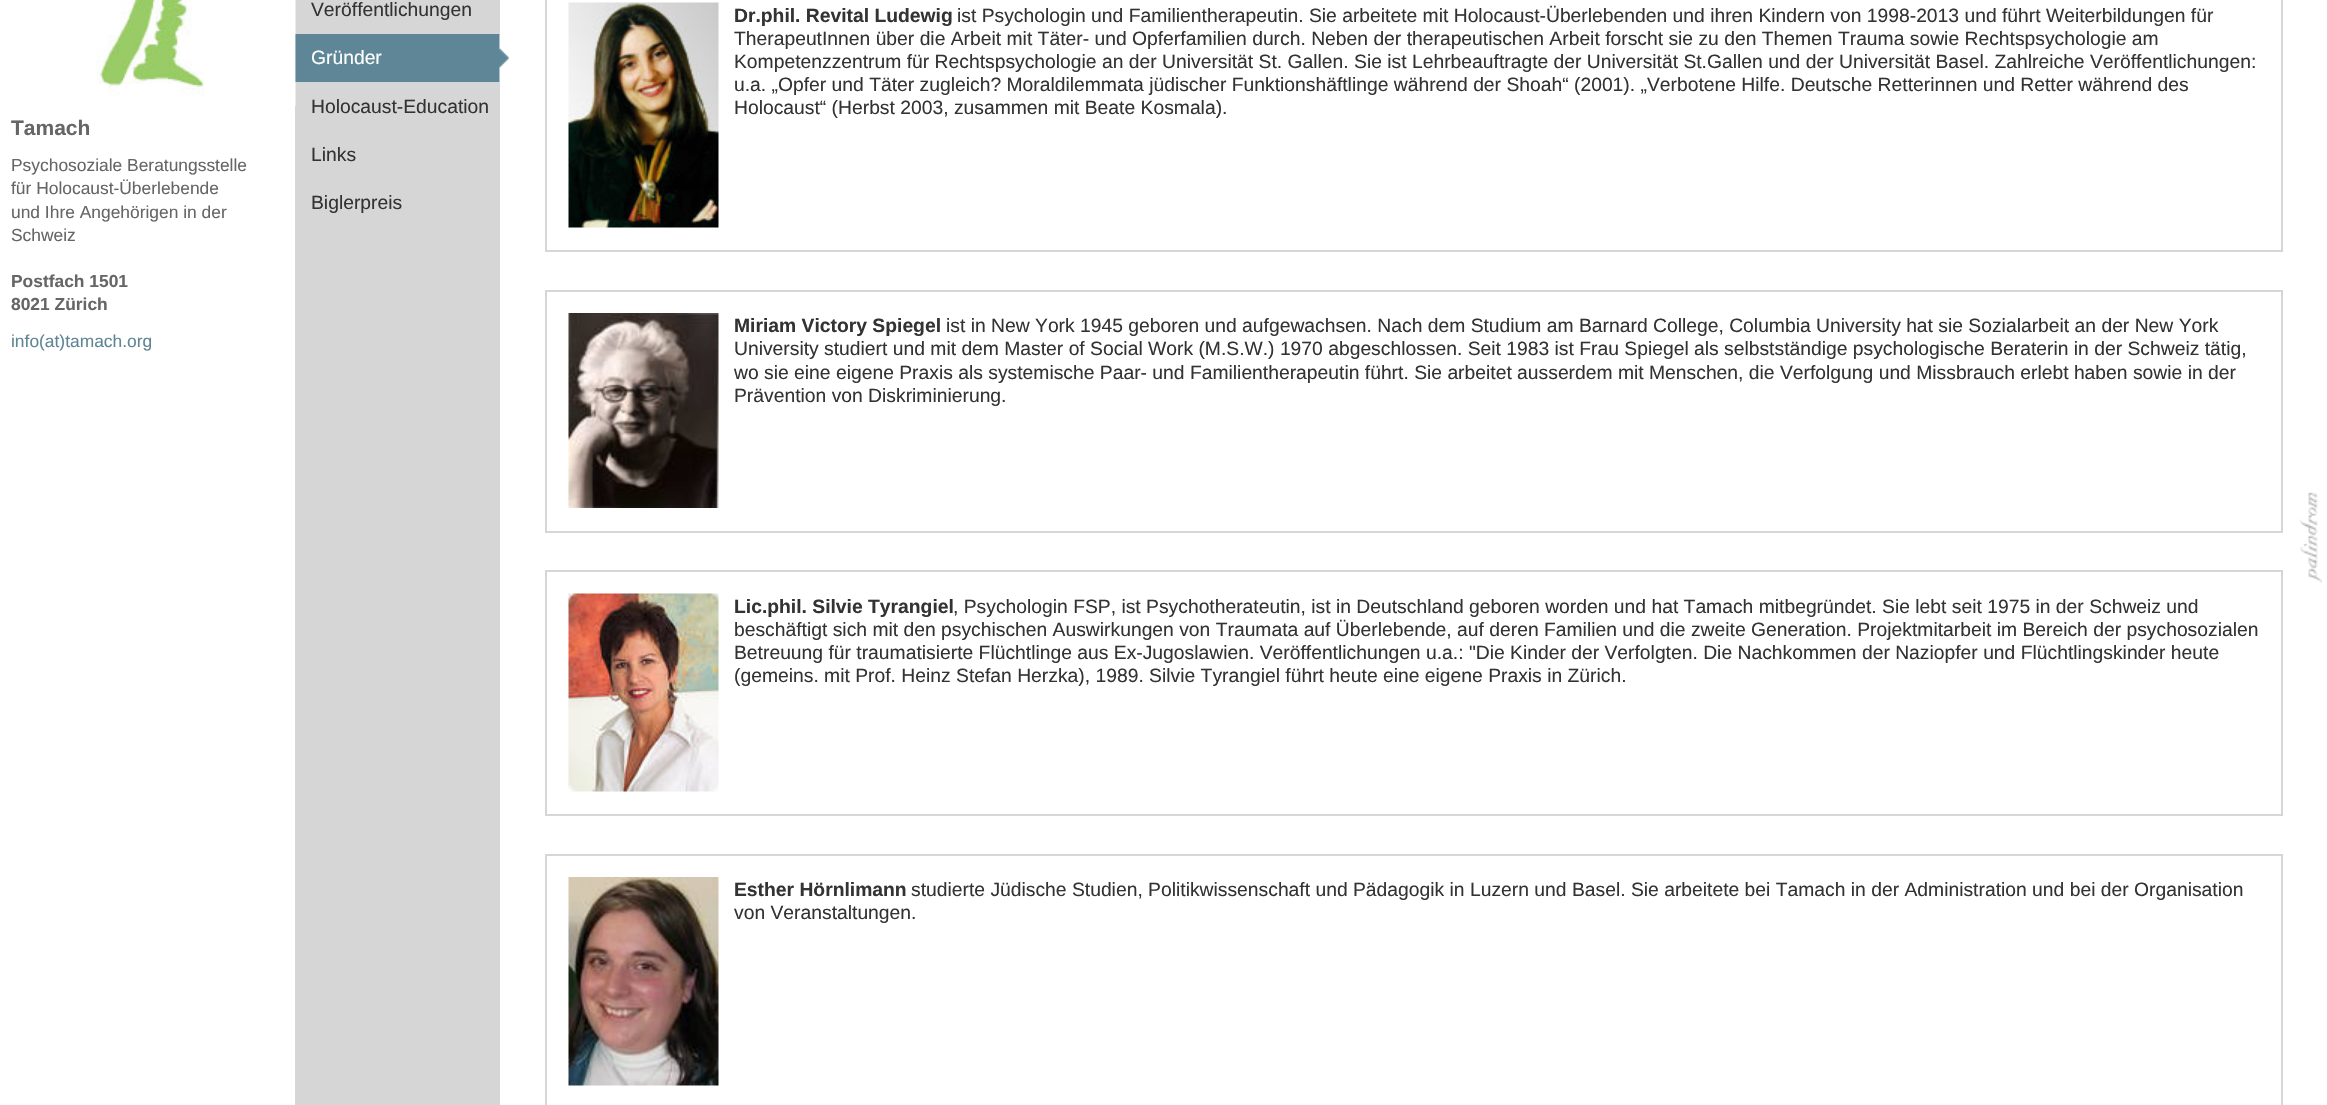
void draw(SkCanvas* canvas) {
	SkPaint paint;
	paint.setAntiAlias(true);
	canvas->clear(0xffffffff);
	paint.setColor(0xffd6d6d6);
	canvas->drawRect(SkRect::MakeXYWH(295, 0, 205, 1105), paint);
	canvas->drawImageRect(SkImages::DeferredFromEncodedData(SkData::MakeFromFileName("img1.png")), SkRect::MakeXYWH(96, 0, 200, 106), SkSamplingOptions());
	SkFont f1(fontMgr->matchFamilyStyle("Liberation Sans", SkFontStyle::Bold()), 21);
	f1.setSubpixel(true);
	paint.setColor(0xff666666);
	canvas->drawString("Tamach", 11, 135, f1, paint);
	SkFont f2(fontMgr->matchFamilyStyle("Liberation Sans", SkFontStyle::Normal()), 17.4);
	f2.setSubpixel(true);
	canvas->drawString("Psychosoziale Beratungsstelle", 11, 171, f2, paint);
	canvas->drawString("für Holocaust-Überlebende", 11, 194, f2, paint);
	canvas->drawString("und Ihre Angehörigen in der", 11, 218, f2, paint);
	canvas->drawString("Schweiz", 11, 241, f2, paint);
	SkFont f3(fontMgr->matchFamilyStyle("Liberation Sans", SkFontStyle::Bold()), 17.4);
	f3.setSubpixel(true);
	canvas->drawString("Postfach 1501", 11, 287, f3, paint);
	canvas->drawString("8021 Zürich", 11, 310, f3, paint);
	paint.setColor(0xff5e8696);
	canvas->drawString("info(at)tamach.org", 11, 347, f2, paint);
	SkFont f4(fontMgr->matchFamilyStyle("Liberation Sans", SkFontStyle::Normal()), 19.3);
	f4.setSubpixel(true);
	paint.setColor(0xff333333);
	canvas->drawString("Veröffentlichungen", 311, 16, f4, paint);
	canvas->drawImageRect(SkImages::DeferredFromEncodedData(SkData::MakeFromFileName("img2.png")), SkRect::MakeXYWH(295, 34, 214, 48), SkSamplingOptions());
	paint.setColor(0xffffffff);
	canvas->drawString("Gründer", 311, 64, f4, paint);
	paint.setColor(0xff333333);
	canvas->drawString("Holocaust-Education", 311, 113, f4, paint);
	canvas->drawString("Links", 311, 161, f4, paint);
	canvas->drawString("Biglerpreis", 311, 209, f4, paint);
	paint.setStroke(true);
	paint.setStrokeWidth(2);
	paint.setColor(0xffd6d6d6);
	canvas->drawRect(SkRect::MakeXYWH(546, -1, 1736, 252), paint);
	canvas->drawImageRect(SkImages::DeferredFromEncodedData(SkData::MakeFromFileName("img3.png")), SkRect::MakeXYWH(568, 2, 151, 226), SkSamplingOptions());
	SkFont f5(fontMgr->matchFamilyStyle("Liberation Sans", SkFontStyle::Bold()), 19.3);
	f5.setSubpixel(true);
	paint.setStroke(false);
	paint.setColor(0xff333333);
	canvas->drawString("Dr.phil. Revital Ludewig", 734, 22, f5, paint);
	canvas->drawString("ist Psychologin und Familientherapeutin. Sie arbeitete mit Holocaust-Überlebenden und ihren Kindern von 1998-2013 und führt Weiterbildungen für", 957, 22, f4, paint);
	canvas->drawString("TherapeutInnen über die Arbeit mit Täter- und Opferfamilien durch. Neben der therapeutischen Arbeit forscht sie zu den Themen Trauma sowie Rechtspsychologie am", 734, 45, f4, paint);
	canvas->drawString("Kompetenzzentrum für Rechtspsychologie an der Universität St. Gallen. Sie ist Lehrbeauftragte der Universität St.Gallen und der Universität Basel. Zahlreiche Veröffentlichungen:", 734, 68, f4, paint);
	canvas->drawString("u.a. „Opfer und Täter zugleich? Moraldilemmata jüdischer Funktionshäftlinge während der Shoah“ (2001). „Verbotene Hilfe. Deutsche Retterinnen und Retter während des", 734, 91, f4, paint);
	canvas->drawString("Holocaust“ (Herbst 2003, zusammen mit Beate Kosmala).", 734, 114, f4, paint);
	paint.setStroke(true);
	paint.setColor(0xffd6d6d6);
	canvas->drawRect(SkRect::MakeXYWH(546, 291, 1736, 241), paint);
	canvas->drawImageRect(SkImages::DeferredFromEncodedData(SkData::MakeFromFileName("img4.png")), SkRect::MakeXYWH(568, 313, 151, 195), SkSamplingOptions());
	paint.setStroke(false);
	paint.setColor(0xff333333);
	canvas->drawString("Miriam Victory Spiegel", 734, 332, f5, paint);
	canvas->drawString("ist in New York 1945 geboren und aufgewachsen. Nach dem Studium am Barnard College, Columbia University hat sie Sozialarbeit an der New York", 946, 332, f4, paint);
	canvas->drawString("University studiert und mit dem Master of Social Work (M.S.W.) 1970 abgeschlossen. Seit 1983 ist Frau Spiegel als selbstständige psychologische Beraterin in der Schweiz tätig,", 734, 355, f4, paint);
	canvas->drawString("wo sie eine eigene Praxis als systemische Paar- und Familientherapeutin führt. Sie arbeitet ausserdem mit Menschen, die Verfolgung und Missbrauch erlebt haben sowie in der", 734, 379, f4, paint);
	canvas->drawString("Prävention von Diskriminierung.", 734, 402, f4, paint);
	paint.setStroke(true);
	paint.setColor(0xffd6d6d6);
	canvas->drawRect(SkRect::MakeXYWH(546, 571, 1736, 244), paint);
	canvas->drawImageRect(SkImages::DeferredFromEncodedData(SkData::MakeFromFileName("img5.png")), SkRect::MakeXYWH(568, 593, 151, 199), SkSamplingOptions());
	paint.setStroke(false);
	paint.setColor(0xff333333);
	canvas->drawString("Lic.phil. Silvie Tyrangiel", 734, 613, f5, paint);
	canvas->drawString(", Psychologin FSP, ist Psychotherateutin, ist in Deutschland geboren worden und hat Tamach mitbegründet. Sie lebt seit 1975 in der Schweiz und", 953, 613, f4, paint);
	canvas->drawString("beschäftigt sich mit den psychischen Auswirkungen von Traumata auf Überlebende, auf deren Familien und die zweite Generation. Projektmitarbeit im Bereich der psychosozialen", 734, 636, f4, paint);
	canvas->drawString("Betreuung für traumatisierte Flüchtlinge aus Ex-Jugoslawien. Veröffentlichungen u.a.: \"Die Kinder der Verfolgten. Die Nachkommen der Naziopfer und Flüchtlingskinder heute", 734, 659, f4, paint);
	canvas->drawString("(gemeins. mit Prof. Heinz Stefan Herzka), 1989. Silvie Tyrangiel führt heute eine eigene Praxis in Zürich.", 734, 682, f4, paint);
	paint.setStroke(true);
	paint.setColor(0xffd6d6d6);
	canvas->drawRect(SkRect::MakeXYWH(546, 855, 1736, 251), paint);
	canvas->drawImageRect(SkImages::DeferredFromEncodedData(SkData::MakeFromFileName("img6.png")), SkRect::MakeXYWH(568, 877, 151, 209), SkSamplingOptions());
	paint.setStroke(false);
	paint.setColor(0xff333333);
	canvas->drawString("Esther Hörnlimann", 734, 896, f5, paint);
	canvas->drawString("studierte Jüdische Studien, Politikwissenschaft und Pädagogik in Luzern und Basel. Sie arbeitete bei Tamach in der Administration und bei der Organisation", 911, 896, f4, paint);
	canvas->drawString("von Veranstaltungen.", 734, 919, f4, paint);
	canvas->drawImageRect(SkImages::DeferredFromEncodedData(SkData::MakeFromFileName("img7.png")), SkRect::MakeXYWH(2299, 492, 24, 91), SkSamplingOptions());
}
